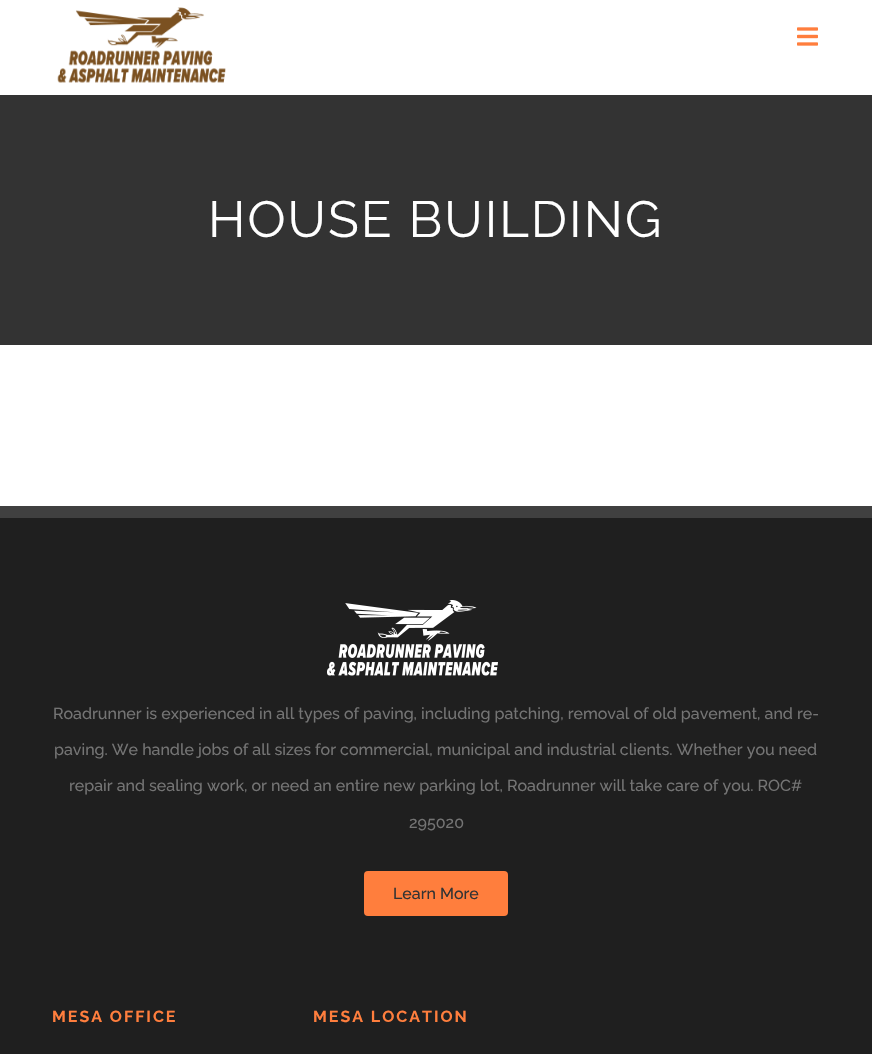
void draw(SkCanvas* canvas) {
	SkPaint paint;
	paint.setAntiAlias(true);
	auto spacedText = [&](const char* s, float x, float y, const SkFont& font, const SkPaint& ink, float letter, float word) {
		std::vector<SkGlyphID> glyphs(font.countText(s, strlen(s), SkTextEncoding::kUTF8));
		std::vector<float> xs(glyphs.size());
		font.textToGlyphs(s, strlen(s), SkTextEncoding::kUTF8, glyphs);
		font.getXPos(glyphs, xs, x);
		float extra = 0;
		for (size_t i = 0; i < glyphs.size(); i++) {
			xs[i] += extra;
			extra += letter + word * (glyphs[i] == font.unicharToGlyph(' '));
		}
		canvas->drawTextBlob(SkTextBlob::MakeFromPosHGlyphs(glyphs, xs, y, font), 0, 0, ink);
	};
	canvas->clear(0xffffffff);
	canvas->drawImageRect(SkImages::DeferredFromEncodedData(SkData::MakeFromFileName("img1.png")), SkRect::MakeXYWH(57, 7, 169, 76), SkSamplingOptions());
	canvas->drawImageRect(SkImages::DeferredFromEncodedData(SkData::MakeFromFileName("img2.png")), SkRect::MakeXYWH(797, 27, 21, 19), SkSamplingOptions());
	paint.setColor(0xff333333);
	canvas->drawRect(SkRect::MakeXYWH(0, 95, 872, 250), paint);
	SkFont f1(fontMgr->matchFamilyStyle("Raleway", SkFontStyle::Normal()), 50.75);
	f1.setSubpixel(true);
	paint.setColor(0xffffffff);
	spacedText("HOUSE BUILDING", 208, 237, f1, paint, 2, 0);
	paint.setColor(0xff1f1f1f);
	canvas->drawRect(SkRect::MakeXYWH(0, 518, 872, 536), paint);
	paint.setColor(0xff404040);
	canvas->drawRect(SkRect::MakeXYWH(0, 506, 872, 12), paint);
	canvas->drawImageRect(SkImages::DeferredFromEncodedData(SkData::MakeFromFileName("img3.png")), SkRect::MakeXYWH(327, 600, 171, 76), SkSamplingOptions());
	SkFont f2(fontMgr->matchFamilyStyle("Raleway", SkFontStyle(500, SkFontStyle::kNormal_Width, SkFontStyle::kUpright_Slant)), 16);
	f2.setSubpixel(true);
	paint.setColor(0xff747474);
	canvas->drawString("Roadrunner is experienced in all types of paving, including patching, removal of old pavement, and re-", 53, 719, f2, paint);
	canvas->drawString("paving. We handle jobs of all sizes for commercial, municipal and industrial clients. Whether you need", 54, 755, f2, paint);
	canvas->drawString("repair and sealing work, or need an entire new parking lot, Roadrunner will take care of you. ROC#", 69, 791, f2, paint);
	canvas->drawString("295020", 409, 828, f2, paint);
	paint.setColor(0xffff7e3d);
	canvas->drawRoundRect(SkRect::MakeXYWH(364, 871, 144, 45), 4, 4, paint);
	paint.setColor(0xff333333);
	canvas->drawString("Learn More", 393, 899, f2, paint);
	SkFont f3(fontMgr->matchFamilyStyle("Raleway", SkFontStyle::Bold()), 16);
	f3.setSubpixel(true);
	paint.setColor(0xffff7e3d);
	spacedText("MESA OFFICE", 52, 1022, f3, paint, 2, 0);
	spacedText("MESA LOCATION", 313, 1022, f3, paint, 2, 0);
}
